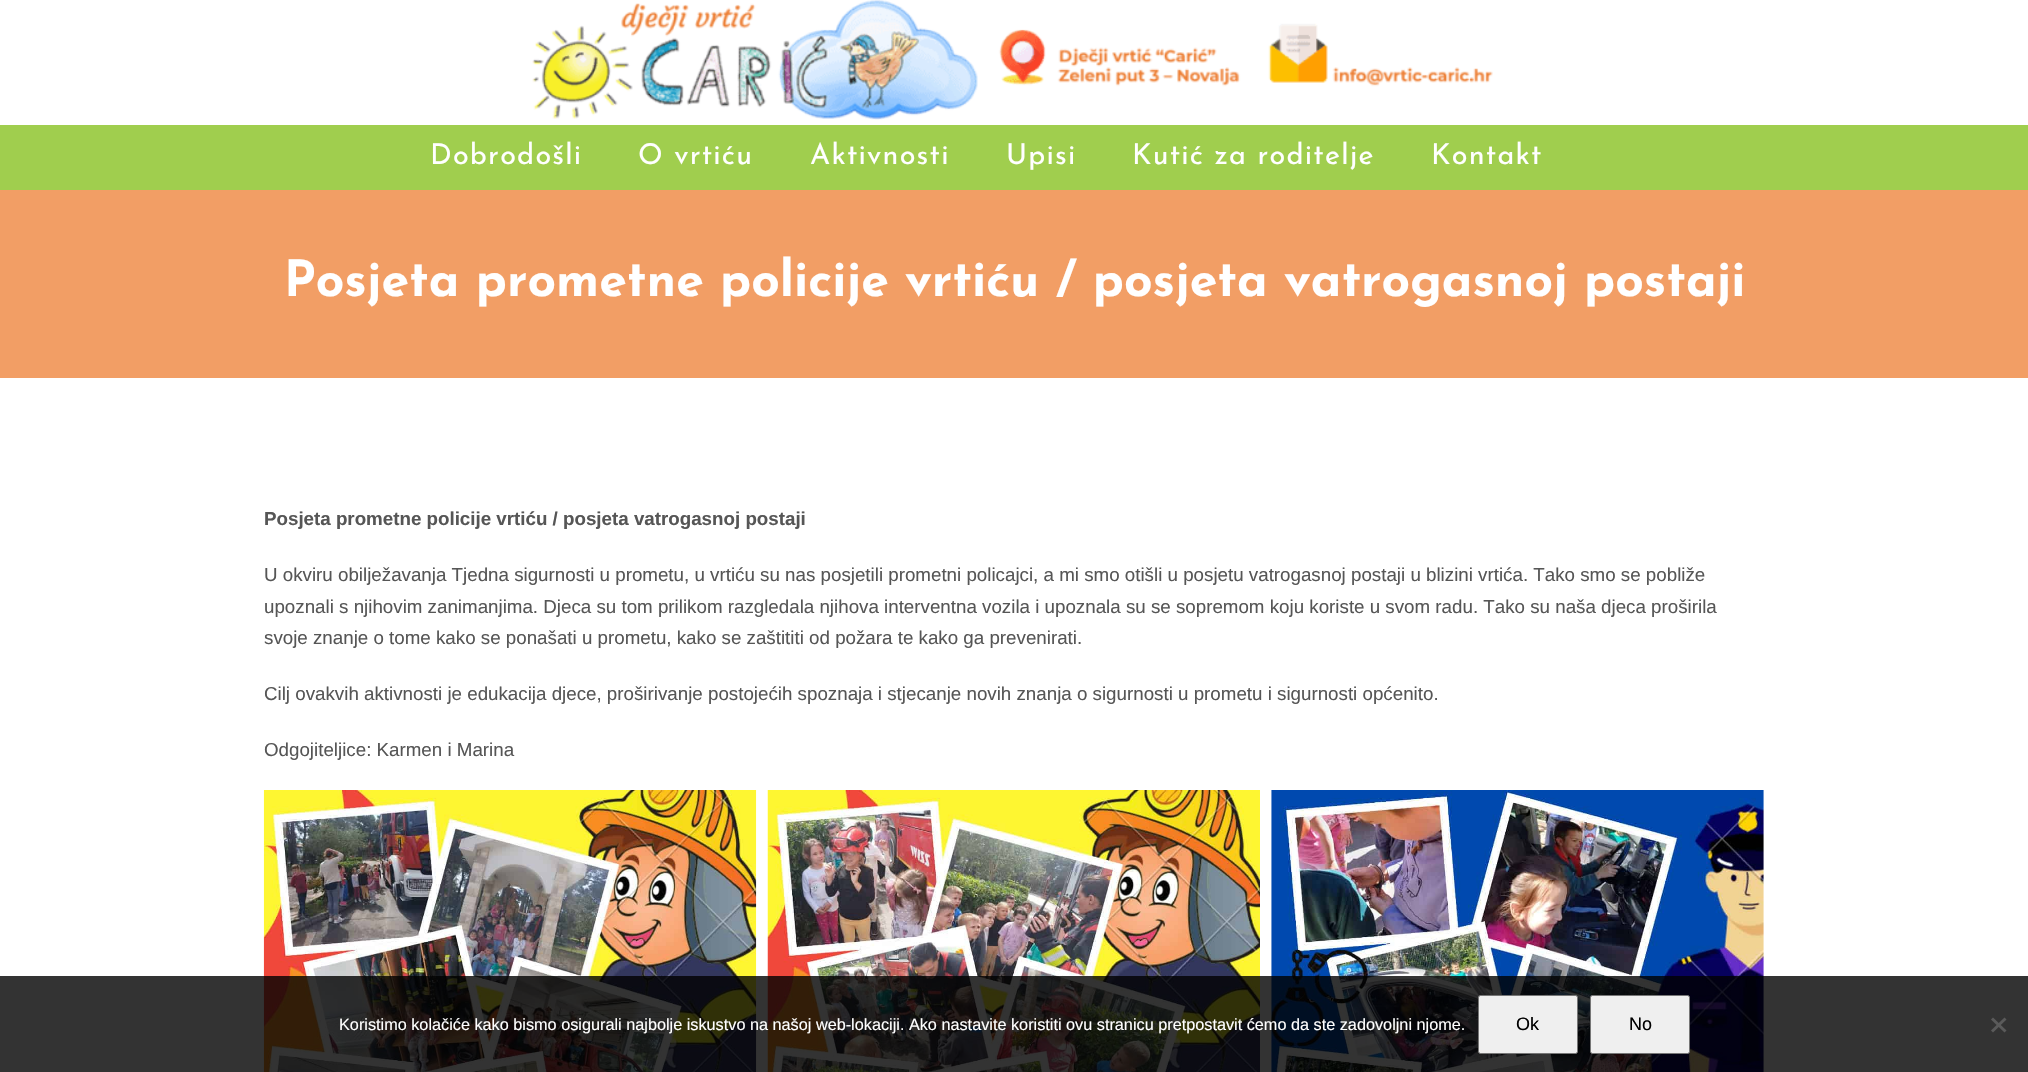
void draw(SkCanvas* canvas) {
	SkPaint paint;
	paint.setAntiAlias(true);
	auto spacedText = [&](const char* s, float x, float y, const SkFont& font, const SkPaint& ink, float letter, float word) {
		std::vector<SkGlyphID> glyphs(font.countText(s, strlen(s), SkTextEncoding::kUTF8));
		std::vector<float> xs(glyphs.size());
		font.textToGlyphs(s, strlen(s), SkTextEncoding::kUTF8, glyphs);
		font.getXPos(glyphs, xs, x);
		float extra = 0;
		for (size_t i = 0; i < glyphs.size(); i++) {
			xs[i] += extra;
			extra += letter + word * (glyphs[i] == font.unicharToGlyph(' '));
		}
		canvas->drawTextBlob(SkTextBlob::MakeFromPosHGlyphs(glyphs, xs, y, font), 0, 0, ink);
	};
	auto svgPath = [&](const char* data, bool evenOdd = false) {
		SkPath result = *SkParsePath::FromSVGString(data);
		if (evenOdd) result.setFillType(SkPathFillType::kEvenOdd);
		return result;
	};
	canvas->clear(0xffffffff);
	canvas->drawImageRect(SkImages::DeferredFromEncodedData(SkData::MakeFromFileName("img1.png")), SkRect::MakeXYWH(532, 0, 961, 120), SkSamplingOptions());
	paint.setColor(0xffa0ce4e);
	canvas->drawRect(SkRect::MakeXYWH(0, 125, 2028, 65), paint);
	SkFont f1(fontMgr->matchFamilyStyle("Josefin Sans", SkFontStyle::Normal()), 28.75);
	f1.setSubpixel(true);
	paint.setColor(0xffffffff);
	spacedText("Dobrodošli", 430, 164, f1, paint, 1.25, 0);
	spacedText("O vrtiću", 638, 164, f1, paint, 1.25, 0);
	spacedText("Aktivnosti", 810, 164, f1, paint, 1.25, 0);
	spacedText("Upisi", 1006, 164, f1, paint, 1.25, 0);
	spacedText("Kutić za roditelje", 1132, 164, f1, paint, 1.25, 0);
	spacedText("Kontakt", 1431, 164, f1, paint, 1.25, 0);
	paint.setColor(0xfff29e65);
	canvas->drawRect(SkRect::MakeXYWH(0, 190, 2028, 188), paint);
	SkFont f2(fontMgr->matchFamilyStyle("Josefin Sans", SkFontStyle::Bold()), 50);
	f2.setSubpixel(true);
	paint.setColor(0xffffffff);
	canvas->drawString("Posjeta prometne policije vrtiću / posjeta vatrogasnoj postaji", 284, 296, f2, paint);
	SkFont f3(fontMgr->matchFamilyStyle("Liberation Sans", SkFontStyle::Bold()), 18.75);
	f3.setSubpixel(true);
	paint.setColor(0xff565656);
	canvas->drawString("Posjeta prometne policije vrtiću / posjeta vatrogasnoj postaji", 264, 525, f3, paint);
	SkFont f4(fontMgr->matchFamilyStyle("Liberation Sans", SkFontStyle::Normal()), 18.75);
	f4.setSubpixel(true);
	canvas->drawString("U okviru obilježavanja Tjedna sigurnosti u prometu, u vrtiću su nas posjetili prometni policajci, a mi smo otišli u posjetu vatrogasnoj postaji u blizini vrtića. Tako smo se pobliže", 264, 581, f4, paint);
	canvas->drawString("upoznali s njihovim zanimanjima. Djeca su tom prilikom razgledala njihova interventna vozila i upoznala su se sopremom koju koriste u svom radu. Tako su naša djeca proširila", 264, 613, f4, paint);
	canvas->drawString("svoje znanje o tome kako se ponašati u prometu, kako se zaštititi od požara te kako ga prevenirati.", 264, 644, f4, paint);
	canvas->drawString("Cilj ovakvih aktivnosti je edukacija djece, proširivanje postojećih spoznaja i stjecanje novih znanja o sigurnosti u prometu i sigurnosti općenito.", 264, 700, f4, paint);
	canvas->drawString("Odgojiteljice: Karmen i Marina", 264, 756, f4, paint);
	canvas->drawImageRect(SkImages::DeferredFromEncodedData(SkData::MakeFromFileName("img2.png")), SkRect::MakeXYWH(263, 790, 494, 282), SkSamplingOptions());
	canvas->drawImageRect(SkImages::DeferredFromEncodedData(SkData::MakeFromFileName("img3.png")), SkRect::MakeXYWH(767, 790, 493, 282), SkSamplingOptions());
	canvas->drawImageRect(SkImages::DeferredFromEncodedData(SkData::MakeFromFileName("img4.png")), SkRect::MakeXYWH(1271, 790, 493, 282), SkSamplingOptions());
	paint.setColor(0xcc000000);
	canvas->drawRect(SkRect::MakeXYWH(0, 976, 2028, 96), paint);
	SkFont f5(fontMgr->matchFamilyStyle("Liberation Sans", SkFontStyle::Normal()), 16.25);
	f5.setSubpixel(true);
	paint.setColor(0xffffffff);
	canvas->drawString("Koristimo kolačiće kako bismo osigurali najbolje iskustvo na našoj web-lokaciji. Ako nastavite koristiti ovu stranicu pretpostavit ćemo da ste zadovoljni njome.", 339, 1030, f5, paint);
	paint.setColor(0xffefefef);
	canvas->drawRoundRect(SkRect::MakeXYWH(1478.5, 995.5, 99, 58), 2, 2, paint);
	paint.setStroke(true);
	paint.setStrokeWidth(1);
	paint.setColor(0xff767676);
	canvas->drawRoundRect(SkRect::MakeXYWH(1478.5, 995.5, 99, 58), 2, 2, paint);
	SkFont f6(fontMgr->matchFamilyStyle("Liberation Sans", SkFontStyle::Normal()), 18);
	f6.setSubpixel(true);
	paint.setStroke(false);
	paint.setColor(0xff000000);
	canvas->drawString("Ok", 1516, 1030, f6, paint);
	paint.setColor(0xffefefef);
	canvas->drawRoundRect(SkRect::MakeXYWH(1590.5, 995.5, 99, 58), 2, 2, paint);
	paint.setStroke(true);
	paint.setColor(0xff767676);
	canvas->drawRoundRect(SkRect::MakeXYWH(1590.5, 995.5, 99, 58), 2, 2, paint);
	paint.setStroke(false);
	paint.setColor(0xff000000);
	canvas->drawString("No", 1629, 1030, f6, paint);
	paint.setColor(0xff5a5a5a);
	canvas->drawPath(svgPath("M2004.5 1017.5L2006.5 1019.5L1993 1032.5L1991 1030.5Z"), paint);
	canvas->drawPath(svgPath("M1991 1019.5L1993 1017.5L2006.5 1030.5L2004.5 1032.5Z"), paint);
}
